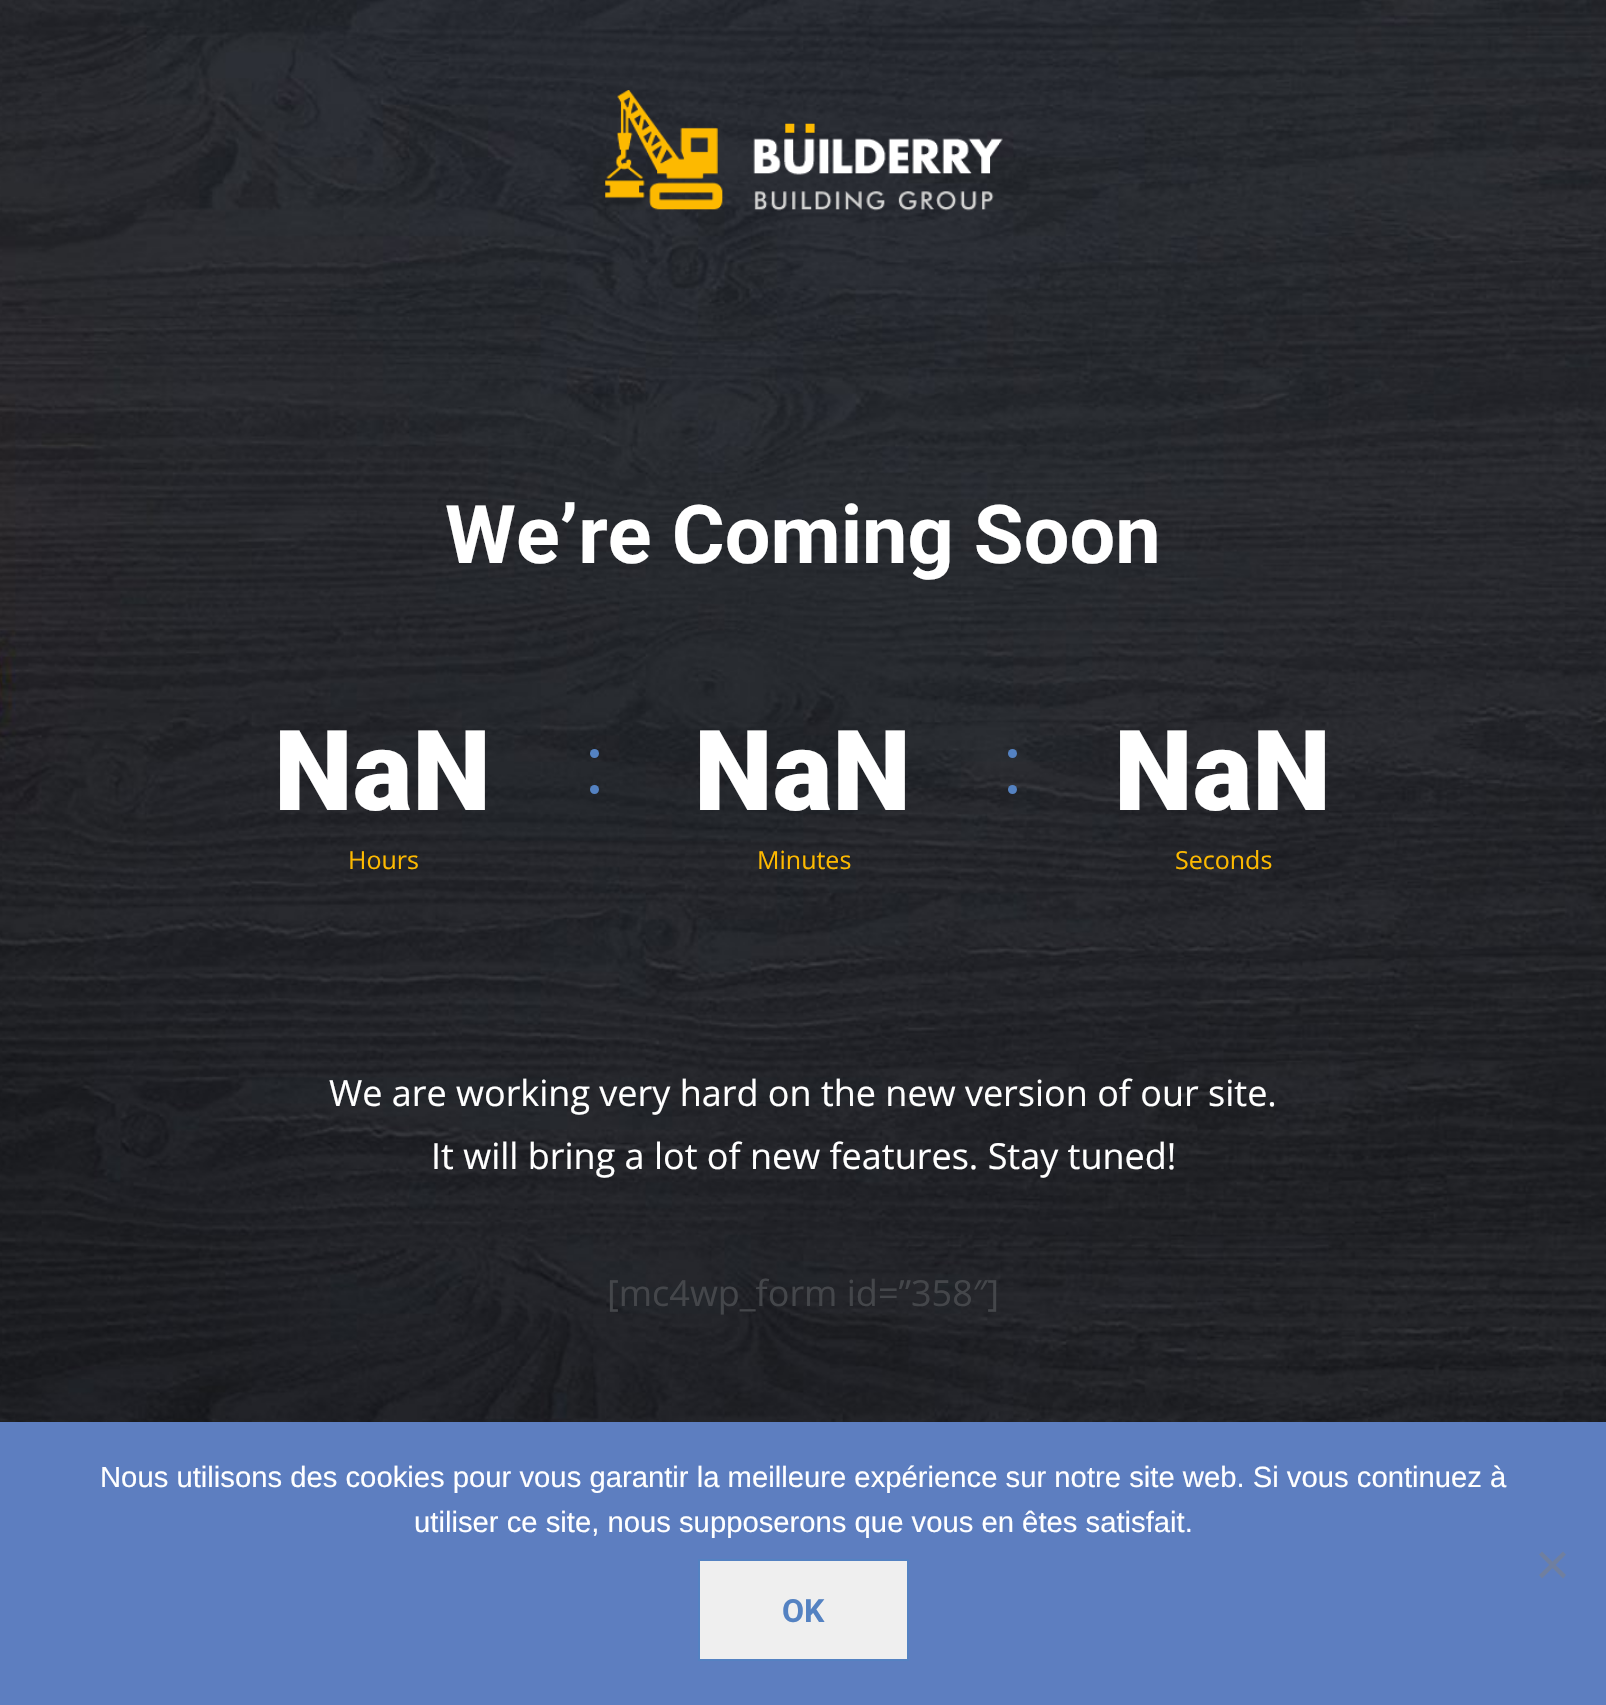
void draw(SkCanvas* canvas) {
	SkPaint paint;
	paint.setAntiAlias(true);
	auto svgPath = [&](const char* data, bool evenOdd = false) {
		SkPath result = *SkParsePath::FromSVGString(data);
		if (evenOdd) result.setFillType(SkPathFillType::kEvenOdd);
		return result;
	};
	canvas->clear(0xffffffff);
	canvas->drawImageRect(SkImages::DeferredFromEncodedData(SkData::MakeFromFileName("img1.png")), SkRect::MakeXYWH(0, 0, 1606, 1422), SkSamplingOptions());
	canvas->drawImageRect(SkImages::DeferredFromEncodedData(SkData::MakeFromFileName("img2.png")), SkRect::MakeXYWH(605, 90, 398, 121), SkSamplingOptions());
	SkFont f1(fontMgr->matchFamilyStyle("Roboto", SkFontStyle::Bold()), 81);
	f1.setSubpixel(true);
	paint.setColor(0xffffffff);
	canvas->drawString("We’re Coming Soon", 445, 563, f1, paint);
	SkFont f2(fontMgr->matchFamilyStyle("Roboto", SkFontStyle(900, SkFontStyle::kNormal_Width, SkFontStyle::kUpright_Slant)), 112);
	f2.setSubpixel(true);
	canvas->drawString("NaN", 274, 810, f2, paint);
	paint.setColor(0xff5482c2);
	canvas->drawCircle(594.5, 753.5, 4.5, paint);
	canvas->drawCircle(594.5, 789.5, 4.5, paint);
	SkFont f3(fontMgr->matchFamilyStyle("Open Sans", SkFontStyle::Normal()), 25);
	f3.setSubpixel(true);
	paint.setColor(0xfffdb900);
	canvas->drawString("Hours", 348, 869, f3, paint);
	paint.setColor(0xffffffff);
	canvas->drawString("NaN", 694, 810, f2, paint);
	paint.setColor(0xff5482c2);
	canvas->drawCircle(1012.5, 753.5, 4.5, paint);
	canvas->drawCircle(1012.5, 789.5, 4.5, paint);
	paint.setColor(0xfffdb900);
	canvas->drawString("Minutes", 757, 869, f3, paint);
	paint.setColor(0xffffffff);
	canvas->drawString("NaN", 1114, 810, f2, paint);
	paint.setColor(0xfffdb900);
	canvas->drawString("Seconds", 1175, 869, f3, paint);
	SkFont f4(fontMgr->matchFamilyStyle("Open Sans", SkFontStyle::Normal()), 36);
	f4.setSubpixel(true);
	paint.setColor(0xffffffff);
	canvas->drawString("We are working very hard on the new version of our site.", 329, 1106, f4, paint);
	canvas->drawString("It will bring a lot of new features. Stay tuned!", 431, 1169, f4, paint);
	paint.setColor(0xff44464a);
	canvas->drawString("[mc4wp_form id=”358″]", 607, 1306, f4, paint);
	paint.setColor(0xff5d7ec0);
	canvas->drawRect(SkRect::MakeXYWH(0, 1422, 1606, 283), paint);
	SkFont f5(fontMgr->matchFamilyStyle("Liberation Sans", SkFontStyle::Normal()), 29.25);
	f5.setSubpixel(true);
	paint.setColor(0xffffffff);
	canvas->drawString("Nous utilisons des cookies pour vous garantir la meilleure expérience sur notre site web. Si vous continuez à", 100, 1487, f5, paint);
	canvas->drawString("utiliser ce site, nous supposerons que vous en êtes satisfait.", 414, 1532, f5, paint);
	paint.setColor(0xff6f7fa0);
	canvas->drawPath(svgPath("M1563 1551.5L1566 1554.5L1542 1578.5L1539 1575Z"), paint);
	canvas->drawPath(svgPath("M1539 1554.5L1542 1551.5L1566 1575L1563 1578.5Z"), paint);
	paint.setColor(0xffefefef);
	canvas->drawRect(SkRect::MakeXYWH(699, 1560, 209, 100), paint);
	paint.setStroke(true);
	paint.setStrokeWidth(2);
	paint.setColor(0xff5482c2);
	canvas->drawRect(SkRect::MakeXYWH(699, 1560, 209, 100), paint);
	SkFont f6(fontMgr->matchFamilyStyle("Roboto", SkFontStyle::Bold()), 32);
	f6.setSubpixel(true);
	paint.setStroke(false);
	canvas->drawString("OK", 782, 1622, f6, paint);
}
